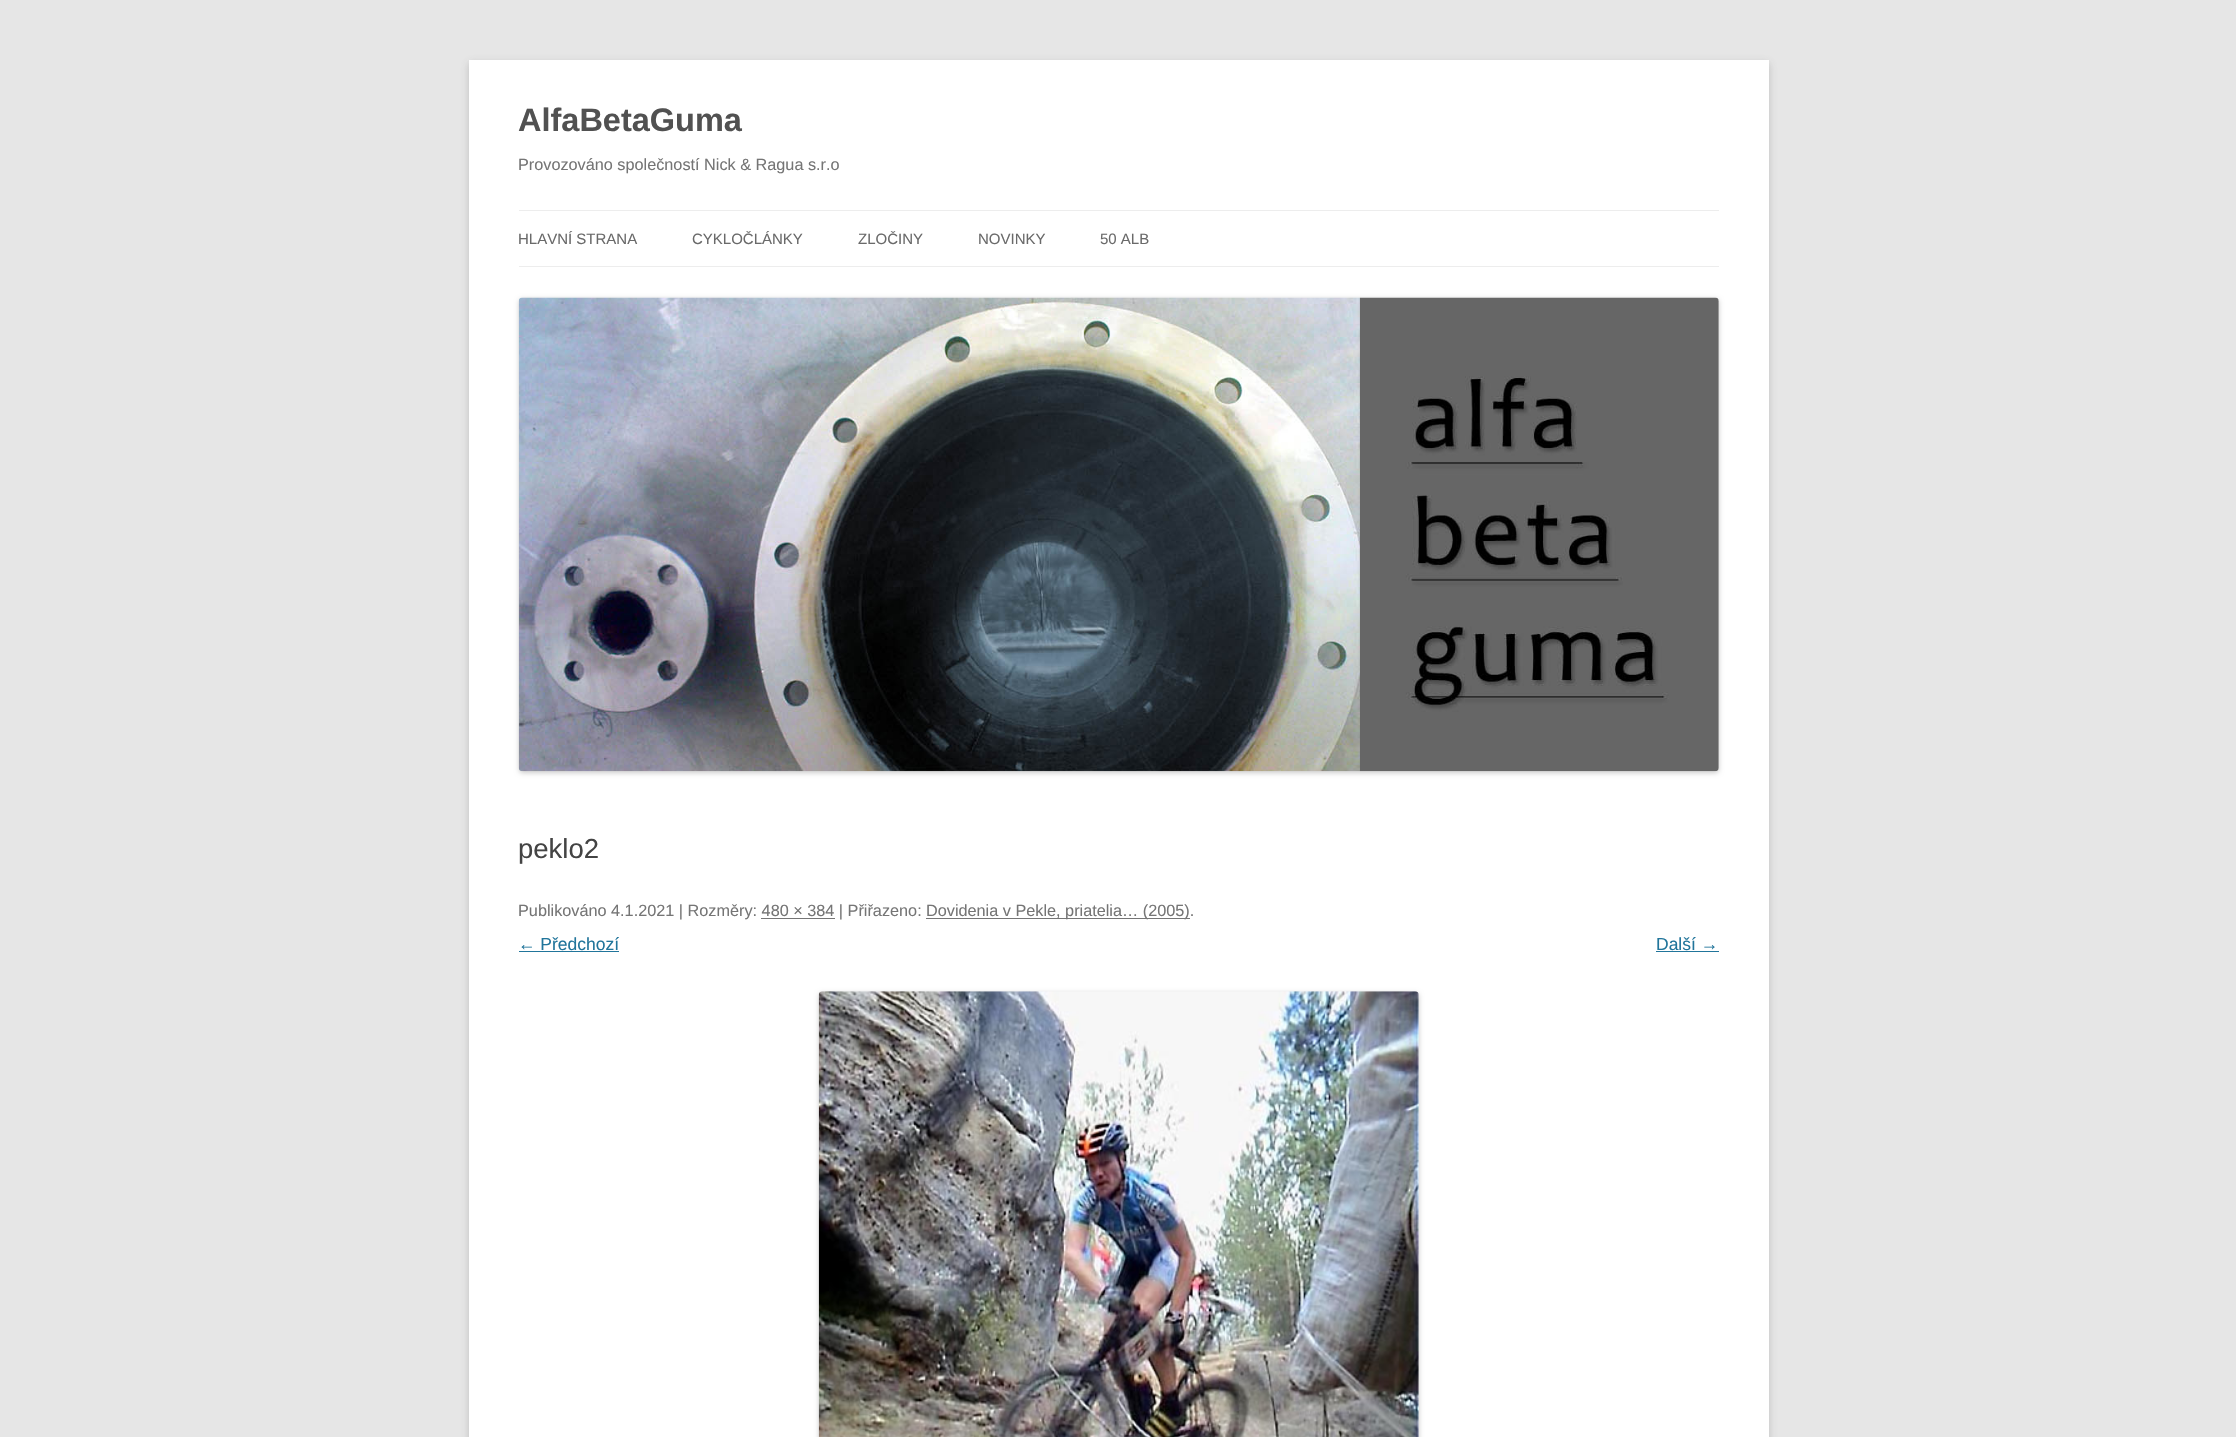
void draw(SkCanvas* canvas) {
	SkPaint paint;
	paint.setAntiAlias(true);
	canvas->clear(0xffe6e6e6);
	paint.setColor(0x4d646464);
	paint.setMaskFilter(SkMaskFilter::MakeBlur(kNormal_SkBlurStyle, 4));
	canvas->drawRect(SkRect::MakeXYWH(469, 63, 1300, 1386), paint);
	paint.setMaskFilter(nullptr);
	paint.setColor(0xffffffff);
	canvas->drawRect(SkRect::MakeXYWH(469, 60, 1300, 1377), paint);
	SkFont f1(fontMgr->matchFamilyStyle("Liberation Sans", SkFontStyle::Bold()), 32.5);
	f1.setSubpixel(true);
	paint.setColor(0xff515151);
	canvas->drawString("AlfaBetaGuma", 518, 131, f1, paint);
	SkFont f2(fontMgr->matchFamilyStyle("Liberation Sans", SkFontStyle::Normal()), 16.25);
	f2.setSubpixel(true);
	paint.setColor(0xff757575);
	canvas->drawString("Provozováno společností Nick & Ragua s.r.o", 518, 170, f2, paint);
	paint.setColor(0xffededed);
	canvas->drawRect(SkRect::MakeXYWH(519, 210, 1200, 1), paint);
	canvas->drawRect(SkRect::MakeXYWH(519, 266, 1200, 1), paint);
	SkFont f3(fontMgr->matchFamilyStyle("Liberation Sans", SkFontStyle::Normal()), 15);
	f3.setSubpixel(true);
	paint.setColor(0xff6a6a6a);
	canvas->drawString("HLAVNÍ STRANA", 518, 244, f3, paint);
	canvas->drawString("CYKLOČLÁNKY", 692, 244, f3, paint);
	canvas->drawString("ZLOČINY", 858, 244, f3, paint);
	canvas->drawString("NOVINKY", 978, 244, f3, paint);
	canvas->drawString("50 ALB", 1100, 244, f3, paint);
	paint.setColor(0x33000000);
	paint.setMaskFilter(SkMaskFilter::MakeBlur(kNormal_SkBlurStyle, 2.5));
	canvas->drawRoundRect(SkRect::MakeXYWH(519, 299, 1200, 474), 4, 4, paint);
	paint.setMaskFilter(nullptr);
	canvas->drawImageRect(SkImages::DeferredFromEncodedData(SkData::MakeFromFileName("img1.png")), SkRect::MakeXYWH(518, 297, 1201, 475), SkSamplingOptions());
	SkFont f4(fontMgr->matchFamilyStyle("Liberation Sans", SkFontStyle::Normal()), 27.5);
	f4.setSubpixel(true);
	paint.setColor(0xff444444);
	canvas->drawString("peklo2", 518, 858, f4, paint);
	paint.setColor(0xff757575);
	canvas->drawString("Publikováno 4.1.2021 | Rozměry: 480 × 384 | Přiřazeno:", 518, 916, f2, paint);
	canvas->drawRect(SkRect::MakeXYWH(926, 918, 264, 1), paint);
	canvas->drawString("Dovidenia v Pekle, priatelia… (2005).", 926, 916, f2, paint);
	canvas->drawRect(SkRect::MakeXYWH(761, 918, 74, 1), paint);
	SkFont f5(fontMgr->matchFamilyStyle("Liberation Sans", SkFontStyle::Normal()), 17.5);
	f5.setSubpixel(true);
	paint.setColor(0xff21759b);
	canvas->drawString("← Předchozí", 518, 950, f5, paint);
	canvas->drawRect(SkRect::MakeXYWH(519, 951, 100, 1), paint);
	canvas->drawString("Další →", 1656, 950, f5, paint);
	canvas->drawRect(SkRect::MakeXYWH(1656, 951, 63, 1), paint);
	paint.setColor(0x33000000);
	paint.setMaskFilter(SkMaskFilter::MakeBlur(kNormal_SkBlurStyle, 2.5));
	canvas->drawRoundRect(SkRect::MakeXYWH(819, 993, 600, 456), 4, 4, paint);
	paint.setMaskFilter(nullptr);
	canvas->drawImageRect(SkImages::DeferredFromEncodedData(SkData::MakeFromFileName("img2.png")), SkRect::MakeXYWH(818, 991, 601, 446), SkSamplingOptions());
}
